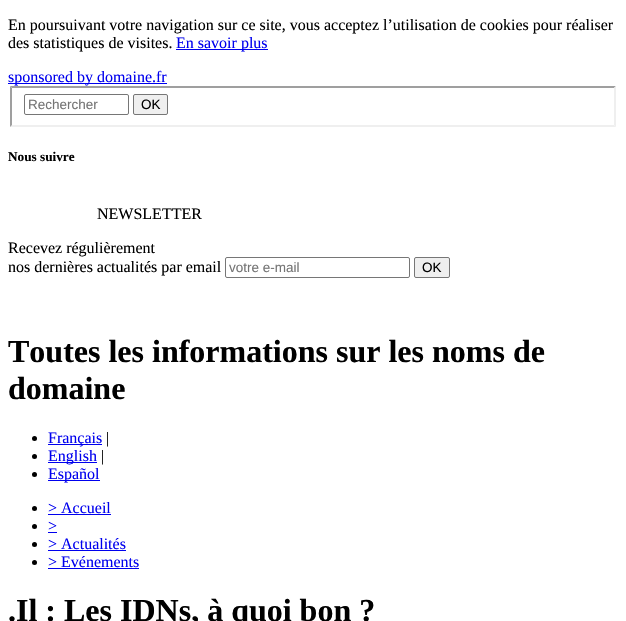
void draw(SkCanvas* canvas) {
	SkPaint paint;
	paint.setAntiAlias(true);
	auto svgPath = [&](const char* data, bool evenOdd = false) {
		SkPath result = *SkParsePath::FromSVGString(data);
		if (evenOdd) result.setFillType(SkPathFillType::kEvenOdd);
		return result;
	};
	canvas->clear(0xffffffff);
	SkFont f1(fontMgr->matchFamilyStyle("Liberation Serif", SkFontStyle::Normal()), 16);
	f1.setSubpixel(true);
	paint.setColor(0xff000000);
	canvas->drawString("En poursuivant votre navigation sur ce site, vous acceptez l’utilisation de cookies pour réaliser", 8, 30, f1, paint);
	canvas->drawString("des statistiques de visites.", 8, 48, f1, paint);
	paint.setColor(0xff0000ee);
	canvas->drawRect(SkRect::MakeXYWH(176, 49, 92, 1), paint);
	canvas->drawString("En savoir plus", 176, 48, f1, paint);
	canvas->drawRect(SkRect::MakeXYWH(8, 83, 159, 1), paint);
	canvas->drawString("sponsored by domaine.fr", 8, 82, f1, paint);
	paint.setColor(0xff9f9f9f);
	canvas->drawPath(svgPath("M10 86H616L614 88H12Z"), paint);
	paint.setColor(0xffefefef);
	canvas->drawPath(svgPath("M616 86V127L614 125V88Z"), paint);
	canvas->drawPath(svgPath("M616 127H10L12 125H614Z"), paint);
	paint.setColor(0xff9f9f9f);
	canvas->drawPath(svgPath("M10 127V86L12 88V125Z"), paint);
	paint.setStroke(true);
	paint.setStrokeWidth(1);
	paint.setColor(0xff767676);
	canvas->drawRoundRect(SkRect::MakeXYWH(24.5, 94.5, 104, 20), 1.5, 1.5, paint);
	SkFont f2(fontMgr->matchFamilyStyle("Liberation Sans", SkFontStyle::Normal()), 13.5);
	f2.setSubpixel(true);
	paint.setStroke(false);
	paint.setColor(0xff757575);
	canvas->drawString("Rechercher", 28, 109, f2, paint);
	paint.setColor(0xffefefef);
	canvas->drawRoundRect(SkRect::MakeXYWH(133.5, 94.5, 34, 20), 1.5, 1.5, paint);
	paint.setStroke(true);
	paint.setColor(0xff767676);
	canvas->drawRoundRect(SkRect::MakeXYWH(133.5, 94.5, 34, 20), 1.5, 1.5, paint);
	paint.setStroke(false);
	paint.setColor(0xff000000);
	canvas->drawString("OK", 141, 109, f2, paint);
	SkFont f3(fontMgr->matchFamilyStyle("Liberation Serif", SkFontStyle::Bold()), 13.25);
	f3.setSubpixel(true);
	canvas->drawString("Nous suivre", 8, 161, f3, paint);
	canvas->drawString("NEWSLETTER", 97, 219, f1, paint);
	canvas->drawString("Recevez régulièrement", 8, 253, f1, paint);
	canvas->drawString("nos dernières actualités par email", 8, 272, f1, paint);
	paint.setStroke(true);
	paint.setColor(0xff767676);
	canvas->drawRoundRect(SkRect::MakeXYWH(225.5, 257.5, 184, 20), 1.5, 1.5, paint);
	paint.setStroke(false);
	paint.setColor(0xff757575);
	canvas->drawString("votre e-mail", 229, 272, f2, paint);
	paint.setColor(0xffefefef);
	canvas->drawRoundRect(SkRect::MakeXYWH(414.5, 257.5, 35, 20), 1.5, 1.5, paint);
	paint.setStroke(true);
	paint.setColor(0xff767676);
	canvas->drawRoundRect(SkRect::MakeXYWH(414.5, 257.5, 35, 20), 1.5, 1.5, paint);
	paint.setStroke(false);
	paint.setColor(0xff000000);
	canvas->drawString("OK", 422, 272, f2, paint);
	SkFont f4(fontMgr->matchFamilyStyle("Liberation Serif", SkFontStyle::Bold()), 32);
	f4.setSubpixel(true);
	canvas->drawString("Toutes les informations sur les noms de", 8, 362, f4, paint);
	canvas->drawString("domaine", 8, 399, f4, paint);
	canvas->drawCircle(34.5, 438.5, 2.5, paint);
	paint.setColor(0xff0000ee);
	canvas->drawRect(SkRect::MakeXYWH(48, 444, 54, 1), paint);
	canvas->drawString("Français", 48, 443, f1, paint);
	paint.setColor(0xff000000);
	canvas->drawString("|", 106, 443, f1, paint);
	canvas->drawCircle(34.5, 456.5, 2.5, paint);
	paint.setColor(0xff0000ee);
	canvas->drawRect(SkRect::MakeXYWH(48, 462, 49, 1), paint);
	canvas->drawString("English", 48, 461, f1, paint);
	paint.setColor(0xff000000);
	canvas->drawString("|", 101, 461, f1, paint);
	canvas->drawCircle(34.5, 474.5, 2.5, paint);
	paint.setColor(0xff0000ee);
	canvas->drawRect(SkRect::MakeXYWH(48, 480, 52, 1), paint);
	canvas->drawString("Español", 48, 479, f1, paint);
	paint.setColor(0xff000000);
	canvas->drawCircle(34.5, 508.5, 2.5, paint);
	paint.setColor(0xff0000ee);
	canvas->drawString("> Accueil", 48, 513, f1, paint);
	canvas->drawRect(SkRect::MakeXYWH(48, 514, 63, 1), paint);
	paint.setColor(0xff000000);
	canvas->drawCircle(34.5, 526.5, 2.5, paint);
	paint.setColor(0xff0000ee);
	canvas->drawString(">", 48, 531, f1, paint);
	canvas->drawRect(SkRect::MakeXYWH(48, 532, 9, 1), paint);
	paint.setColor(0xff000000);
	canvas->drawCircle(34.5, 544.5, 2.5, paint);
	paint.setColor(0xff0000ee);
	canvas->drawString("> Actualités", 48, 549, f1, paint);
	canvas->drawRect(SkRect::MakeXYWH(48, 550, 78, 1), paint);
	paint.setColor(0xff000000);
	canvas->drawCircle(34.5, 562.5, 2.5, paint);
	paint.setColor(0xff0000ee);
	canvas->drawString("> Evénements", 48, 567, f1, paint);
	canvas->drawRect(SkRect::MakeXYWH(48, 568, 91, 1), paint);
	paint.setColor(0xff000000);
	canvas->drawString(".Il : Les IDNs, à quoi bon ?", 8, 621, f4, paint);
}
